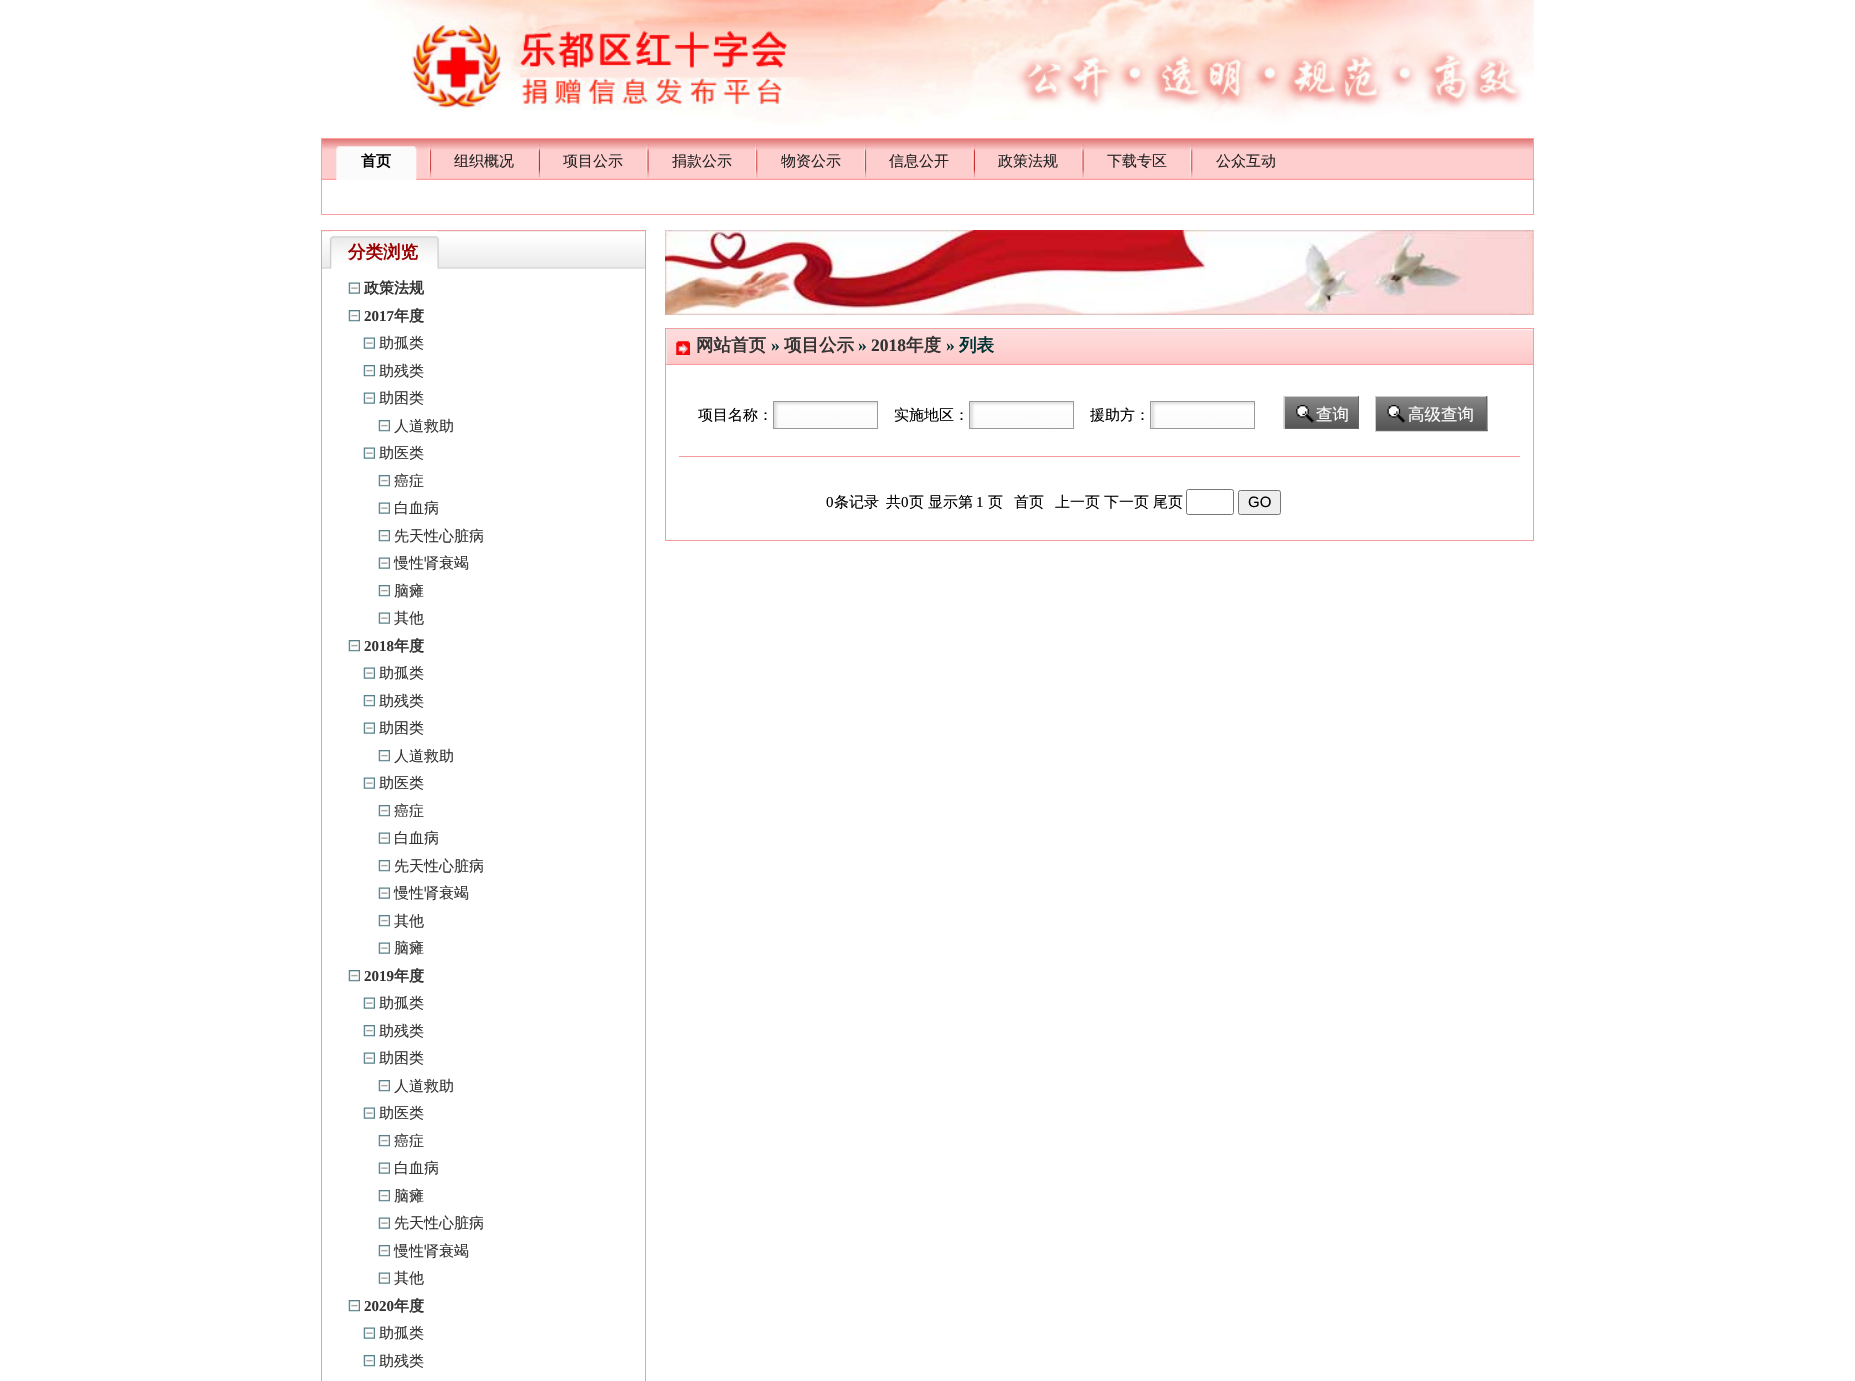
void draw(SkCanvas* canvas) {
	SkPaint paint;
	paint.setAntiAlias(true);
	canvas->clear(0xffffffff);
	canvas->drawImageRect(SkImages::DeferredFromEncodedData(SkData::MakeFromFileName("img1.png")), SkRect::MakeXYWH(367, 0, 1167, 126), SkSamplingOptions());
	canvas->drawImageRect(SkImages::DeferredFromEncodedData(SkData::MakeFromFileName("img2.png")), SkRect::MakeXYWH(322, 139, 1211, 41), SkSamplingOptions());
	paint.setStroke(true);
	paint.setStrokeWidth(1);
	paint.setColor(0xfffc9e9e);
	canvas->drawRect(SkRect::MakeXYWH(321.5, 138.5, 1212, 76), paint);
	canvas->drawImageRect(SkImages::DeferredFromEncodedData(SkData::MakeFromFileName("img3.png")), SkRect::MakeXYWH(336, 146, 81, 34), SkSamplingOptions());
	SkFont f1(fontMgr->matchFamilyStyle("WenQuanYi Zen Hei", SkFontStyle::Bold()), 15);
	f1.setSubpixel(true);
	paint.setStroke(false);
	paint.setColor(0xff000000);
	canvas->drawString("首页", 361, 166, f1, paint);
	canvas->drawImageRect(SkImages::DeferredFromEncodedData(SkData::MakeFromFileName("img4.png")), SkRect::MakeXYWH(428, 144, 4, 34), SkSamplingOptions());
	canvas->drawImageRect(SkImages::DeferredFromEncodedData(SkData::MakeFromFileName("img6.png")), SkRect::MakeXYWH(537, 144, 3, 34), SkSamplingOptions());
	canvas->drawImageRect(SkImages::DeferredFromEncodedData(SkData::MakeFromFileName("img5.png")), SkRect::MakeXYWH(431, 147, 107, 30), SkSamplingOptions());
	SkFont f2(fontMgr->matchFamilyStyle("WenQuanYi Zen Hei", SkFontStyle(500, SkFontStyle::kNormal_Width, SkFontStyle::kUpright_Slant)), 15);
	f2.setSubpixel(true);
	paint.setColor(0xff242424);
	canvas->drawString("组织概况", 454, 166, f2, paint);
	canvas->drawImageRect(SkImages::DeferredFromEncodedData(SkData::MakeFromFileName("img8.png")), SkRect::MakeXYWH(646, 144, 3, 34), SkSamplingOptions());
	canvas->drawImageRect(SkImages::DeferredFromEncodedData(SkData::MakeFromFileName("img7.png")), SkRect::MakeXYWH(646, 148, 1, 21), SkSamplingOptions());
	canvas->drawString("项目公示", 563, 166, f2, paint);
	canvas->drawImageRect(SkImages::DeferredFromEncodedData(SkData::MakeFromFileName("img9.png")), SkRect::MakeXYWH(648, 148, 1, 30), SkSamplingOptions());
	canvas->drawString("捐款公示", 672, 166, f2, paint);
	canvas->drawImageRect(SkImages::DeferredFromEncodedData(SkData::MakeFromFileName("img10.png")), SkRect::MakeXYWH(755, 144, 3, 34), SkSamplingOptions());
	canvas->drawImageRect(SkImages::DeferredFromEncodedData(SkData::MakeFromFileName("img4.png")), SkRect::MakeXYWH(863, 144, 4, 34), SkSamplingOptions());
	canvas->drawImageRect(SkImages::DeferredFromEncodedData(SkData::MakeFromFileName("img11.png")), SkRect::MakeXYWH(757, 144, 107, 34), SkSamplingOptions());
	canvas->drawString("物资公示", 781, 166, f2, paint);
	canvas->drawImageRect(SkImages::DeferredFromEncodedData(SkData::MakeFromFileName("img6.png")), SkRect::MakeXYWH(972, 144, 3, 34), SkSamplingOptions());
	canvas->drawImageRect(SkImages::DeferredFromEncodedData(SkData::MakeFromFileName("img5.png")), SkRect::MakeXYWH(866, 147, 107, 30), SkSamplingOptions());
	canvas->drawString("信息公开", 889, 166, f2, paint);
	canvas->drawImageRect(SkImages::DeferredFromEncodedData(SkData::MakeFromFileName("img8.png")), SkRect::MakeXYWH(1081, 144, 3, 34), SkSamplingOptions());
	canvas->drawImageRect(SkImages::DeferredFromEncodedData(SkData::MakeFromFileName("img7.png")), SkRect::MakeXYWH(1081, 148, 1, 21), SkSamplingOptions());
	canvas->drawString("政策法规", 998, 166, f2, paint);
	canvas->drawImageRect(SkImages::DeferredFromEncodedData(SkData::MakeFromFileName("img9.png")), SkRect::MakeXYWH(1083, 148, 1, 30), SkSamplingOptions());
	canvas->drawString("下载专区", 1107, 166, f2, paint);
	canvas->drawImageRect(SkImages::DeferredFromEncodedData(SkData::MakeFromFileName("img10.png")), SkRect::MakeXYWH(1190, 144, 3, 34), SkSamplingOptions());
	canvas->drawImageRect(SkImages::DeferredFromEncodedData(SkData::MakeFromFileName("img12.png")), SkRect::MakeXYWH(1192, 144, 1, 34), SkSamplingOptions());
	canvas->drawString("公众互动", 1216, 166, f2, paint);
	canvas->drawImageRect(SkImages::DeferredFromEncodedData(SkData::MakeFromFileName("img13.png")), SkRect::MakeXYWH(322, 230, 325, 39), SkSamplingOptions());
	paint.setColor(0xfff69c9e);
	canvas->drawRect(SkRect::MakeXYWH(321, 230, 325, 1), paint);
	canvas->drawRect(SkRect::MakeXYWH(645, 230, 1, 39), paint);
	canvas->drawRect(SkRect::MakeXYWH(321, 230, 1, 39), paint);
	SkFont f3(fontMgr->matchFamilyStyle("WenQuanYi Zen Hei", SkFontStyle::Bold()), 17.5);
	f3.setSubpixel(true);
	paint.setColor(0xff990000);
	canvas->drawString("分类浏览", 348, 258, f3, paint);
	paint.setColor(0xfff69c9e);
	canvas->drawRect(SkRect::MakeXYWH(645, 269, 1, 1112), paint);
	canvas->drawRect(SkRect::MakeXYWH(321, 269, 1, 1112), paint);
	canvas->drawImageRect(SkImages::DeferredFromEncodedData(SkData::MakeFromFileName("img14.png")), SkRect::MakeXYWH(348, 282, 12, 12), SkSamplingOptions());
	paint.setColor(0xff333333);
	canvas->drawString("政策法规", 364, 293, f1, paint);
	canvas->drawImageRect(SkImages::DeferredFromEncodedData(SkData::MakeFromFileName("img15.png")), SkRect::MakeXYWH(348, 310, 12, 12), SkSamplingOptions());
	SkFont f4(fontMgr->matchFamilyStyle("Liberation Serif", SkFontStyle::Bold()), 15);
	f4.setSubpixel(true);
	canvas->drawString("2017", 364, 321, f4, paint);
	canvas->drawString("年度", 394, 321, f1, paint);
	canvas->drawImageRect(SkImages::DeferredFromEncodedData(SkData::MakeFromFileName("img14.png")), SkRect::MakeXYWH(363, 337, 12, 12), SkSamplingOptions());
	canvas->drawString("助孤类", 379, 348, f2, paint);
	canvas->drawImageRect(SkImages::DeferredFromEncodedData(SkData::MakeFromFileName("img15.png")), SkRect::MakeXYWH(363, 365, 12, 12), SkSamplingOptions());
	canvas->drawString("助残类", 379, 376, f2, paint);
	canvas->drawImageRect(SkImages::DeferredFromEncodedData(SkData::MakeFromFileName("img14.png")), SkRect::MakeXYWH(363, 392, 12, 12), SkSamplingOptions());
	canvas->drawString("助困类", 379, 403, f2, paint);
	canvas->drawImageRect(SkImages::DeferredFromEncodedData(SkData::MakeFromFileName("img15.png")), SkRect::MakeXYWH(378, 420, 12, 12), SkSamplingOptions());
	canvas->drawString("人道救助", 394, 431, f2, paint);
	canvas->drawImageRect(SkImages::DeferredFromEncodedData(SkData::MakeFromFileName("img14.png")), SkRect::MakeXYWH(363, 447, 12, 12), SkSamplingOptions());
	canvas->drawString("助医类", 379, 458, f2, paint);
	canvas->drawImageRect(SkImages::DeferredFromEncodedData(SkData::MakeFromFileName("img15.png")), SkRect::MakeXYWH(378, 475, 12, 12), SkSamplingOptions());
	canvas->drawString("癌症", 394, 486, f2, paint);
	canvas->drawImageRect(SkImages::DeferredFromEncodedData(SkData::MakeFromFileName("img14.png")), SkRect::MakeXYWH(378, 502, 12, 12), SkSamplingOptions());
	canvas->drawString("白血病", 394, 513, f2, paint);
	canvas->drawImageRect(SkImages::DeferredFromEncodedData(SkData::MakeFromFileName("img15.png")), SkRect::MakeXYWH(378, 530, 12, 12), SkSamplingOptions());
	canvas->drawString("先天性心脏病", 394, 541, f2, paint);
	canvas->drawImageRect(SkImages::DeferredFromEncodedData(SkData::MakeFromFileName("img14.png")), SkRect::MakeXYWH(378, 557, 12, 12), SkSamplingOptions());
	canvas->drawString("慢性肾衰竭", 394, 568, f2, paint);
	canvas->drawImageRect(SkImages::DeferredFromEncodedData(SkData::MakeFromFileName("img15.png")), SkRect::MakeXYWH(378, 585, 12, 12), SkSamplingOptions());
	canvas->drawString("脑瘫", 394, 596, f2, paint);
	canvas->drawImageRect(SkImages::DeferredFromEncodedData(SkData::MakeFromFileName("img14.png")), SkRect::MakeXYWH(378, 612, 12, 12), SkSamplingOptions());
	canvas->drawString("其他", 394, 623, f2, paint);
	canvas->drawImageRect(SkImages::DeferredFromEncodedData(SkData::MakeFromFileName("img15.png")), SkRect::MakeXYWH(348, 640, 12, 12), SkSamplingOptions());
	canvas->drawString("2018", 364, 651, f4, paint);
	canvas->drawString("年度", 394, 651, f1, paint);
	canvas->drawImageRect(SkImages::DeferredFromEncodedData(SkData::MakeFromFileName("img14.png")), SkRect::MakeXYWH(363, 667, 12, 12), SkSamplingOptions());
	canvas->drawString("助孤类", 379, 678, f2, paint);
	canvas->drawImageRect(SkImages::DeferredFromEncodedData(SkData::MakeFromFileName("img15.png")), SkRect::MakeXYWH(363, 695, 12, 12), SkSamplingOptions());
	canvas->drawString("助残类", 379, 706, f2, paint);
	canvas->drawImageRect(SkImages::DeferredFromEncodedData(SkData::MakeFromFileName("img14.png")), SkRect::MakeXYWH(363, 722, 12, 12), SkSamplingOptions());
	canvas->drawString("助困类", 379, 733, f2, paint);
	canvas->drawImageRect(SkImages::DeferredFromEncodedData(SkData::MakeFromFileName("img15.png")), SkRect::MakeXYWH(378, 750, 12, 12), SkSamplingOptions());
	canvas->drawString("人道救助", 394, 761, f2, paint);
	canvas->drawImageRect(SkImages::DeferredFromEncodedData(SkData::MakeFromFileName("img16.png")), SkRect::MakeXYWH(363, 777, 12, 12), SkSamplingOptions());
	canvas->drawString("助医类", 379, 788, f2, paint);
	canvas->drawImageRect(SkImages::DeferredFromEncodedData(SkData::MakeFromFileName("img15.png")), SkRect::MakeXYWH(378, 805, 12, 12), SkSamplingOptions());
	canvas->drawString("癌症", 394, 816, f2, paint);
	canvas->drawImageRect(SkImages::DeferredFromEncodedData(SkData::MakeFromFileName("img14.png")), SkRect::MakeXYWH(378, 832, 12, 12), SkSamplingOptions());
	canvas->drawString("白血病", 394, 843, f2, paint);
	canvas->drawImageRect(SkImages::DeferredFromEncodedData(SkData::MakeFromFileName("img15.png")), SkRect::MakeXYWH(378, 860, 12, 12), SkSamplingOptions());
	canvas->drawString("先天性心脏病", 394, 871, f2, paint);
	canvas->drawImageRect(SkImages::DeferredFromEncodedData(SkData::MakeFromFileName("img14.png")), SkRect::MakeXYWH(378, 887, 12, 12), SkSamplingOptions());
	canvas->drawString("慢性肾衰竭", 394, 898, f2, paint);
	canvas->drawImageRect(SkImages::DeferredFromEncodedData(SkData::MakeFromFileName("img15.png")), SkRect::MakeXYWH(378, 915, 12, 12), SkSamplingOptions());
	canvas->drawString("其他", 394, 926, f2, paint);
	canvas->drawImageRect(SkImages::DeferredFromEncodedData(SkData::MakeFromFileName("img14.png")), SkRect::MakeXYWH(378, 942, 12, 12), SkSamplingOptions());
	canvas->drawString("脑瘫", 394, 953, f2, paint);
	canvas->drawImageRect(SkImages::DeferredFromEncodedData(SkData::MakeFromFileName("img15.png")), SkRect::MakeXYWH(348, 970, 12, 12), SkSamplingOptions());
	canvas->drawString("2019", 364, 981, f4, paint);
	canvas->drawString("年度", 394, 981, f1, paint);
	canvas->drawImageRect(SkImages::DeferredFromEncodedData(SkData::MakeFromFileName("img14.png")), SkRect::MakeXYWH(363, 997, 12, 12), SkSamplingOptions());
	canvas->drawString("助孤类", 379, 1008, f2, paint);
	canvas->drawImageRect(SkImages::DeferredFromEncodedData(SkData::MakeFromFileName("img15.png")), SkRect::MakeXYWH(363, 1025, 12, 12), SkSamplingOptions());
	canvas->drawString("助残类", 379, 1036, f2, paint);
	canvas->drawImageRect(SkImages::DeferredFromEncodedData(SkData::MakeFromFileName("img14.png")), SkRect::MakeXYWH(363, 1052, 12, 12), SkSamplingOptions());
	canvas->drawString("助困类", 379, 1063, f2, paint);
	canvas->drawImageRect(SkImages::DeferredFromEncodedData(SkData::MakeFromFileName("img15.png")), SkRect::MakeXYWH(378, 1080, 12, 12), SkSamplingOptions());
	canvas->drawString("人道救助", 394, 1091, f2, paint);
	canvas->drawImageRect(SkImages::DeferredFromEncodedData(SkData::MakeFromFileName("img14.png")), SkRect::MakeXYWH(363, 1107, 12, 12), SkSamplingOptions());
	canvas->drawString("助医类", 379, 1118, f2, paint);
	canvas->drawImageRect(SkImages::DeferredFromEncodedData(SkData::MakeFromFileName("img15.png")), SkRect::MakeXYWH(378, 1135, 12, 12), SkSamplingOptions());
	canvas->drawString("癌症", 394, 1146, f2, paint);
	canvas->drawImageRect(SkImages::DeferredFromEncodedData(SkData::MakeFromFileName("img14.png")), SkRect::MakeXYWH(378, 1162, 12, 12), SkSamplingOptions());
	canvas->drawString("白血病", 394, 1173, f2, paint);
	canvas->drawImageRect(SkImages::DeferredFromEncodedData(SkData::MakeFromFileName("img15.png")), SkRect::MakeXYWH(378, 1190, 12, 12), SkSamplingOptions());
	canvas->drawString("脑瘫", 394, 1201, f2, paint);
	canvas->drawImageRect(SkImages::DeferredFromEncodedData(SkData::MakeFromFileName("img14.png")), SkRect::MakeXYWH(378, 1217, 12, 12), SkSamplingOptions());
	canvas->drawString("先天性心脏病", 394, 1228, f2, paint);
	canvas->drawImageRect(SkImages::DeferredFromEncodedData(SkData::MakeFromFileName("img15.png")), SkRect::MakeXYWH(378, 1245, 12, 12), SkSamplingOptions());
	canvas->drawString("慢性肾衰竭", 394, 1256, f2, paint);
	canvas->drawImageRect(SkImages::DeferredFromEncodedData(SkData::MakeFromFileName("img14.png")), SkRect::MakeXYWH(378, 1272, 12, 12), SkSamplingOptions());
	canvas->drawString("其他", 394, 1283, f2, paint);
	canvas->drawImageRect(SkImages::DeferredFromEncodedData(SkData::MakeFromFileName("img15.png")), SkRect::MakeXYWH(348, 1300, 12, 12), SkSamplingOptions());
	canvas->drawString("2020", 364, 1311, f4, paint);
	canvas->drawString("年度", 394, 1311, f1, paint);
	canvas->drawImageRect(SkImages::DeferredFromEncodedData(SkData::MakeFromFileName("img14.png")), SkRect::MakeXYWH(363, 1327, 12, 12), SkSamplingOptions());
	canvas->drawString("助孤类", 379, 1338, f2, paint);
	canvas->drawImageRect(SkImages::DeferredFromEncodedData(SkData::MakeFromFileName("img15.png")), SkRect::MakeXYWH(363, 1355, 12, 12), SkSamplingOptions());
	canvas->drawString("助残类", 379, 1366, f2, paint);
	canvas->drawImageRect(SkImages::DeferredFromEncodedData(SkData::MakeFromFileName("img17.png")), SkRect::MakeXYWH(665, 230, 869, 85), SkSamplingOptions());
	canvas->drawImageRect(SkImages::DeferredFromEncodedData(SkData::MakeFromFileName("img18.png")), SkRect::MakeXYWH(666, 329, 867, 35), SkSamplingOptions());
	paint.setStroke(true);
	paint.setColor(0xfff69c9e);
	canvas->drawRect(SkRect::MakeXYWH(665.5, 328.5, 868, 36), paint);
	canvas->drawImageRect(SkImages::DeferredFromEncodedData(SkData::MakeFromFileName("img19.png")), SkRect::MakeXYWH(676, 341, 14, 14), SkSamplingOptions());
	paint.setStroke(false);
	paint.setColor(0xff333333);
	canvas->drawString("网站首页", 696, 351, f3, paint);
	SkFont f5(fontMgr->matchFamilyStyle("Liberation Serif", SkFontStyle::Bold()), 17.5);
	f5.setSubpixel(true);
	paint.setColor(0xff003333);
	canvas->drawString("»", 771, 351, f5, paint);
	paint.setColor(0xff333333);
	canvas->drawString("项目公示", 784, 351, f3, paint);
	paint.setColor(0xff003333);
	canvas->drawString("»", 858, 351, f5, paint);
	paint.setColor(0xff333333);
	canvas->drawString("2018", 871, 351, f5, paint);
	canvas->drawString("年度", 906, 351, f3, paint);
	paint.setColor(0xff003333);
	canvas->drawString("»", 946, 351, f5, paint);
	canvas->drawString("列表", 959, 351, f3, paint);
	paint.setColor(0xfff69c9e);
	canvas->drawRect(SkRect::MakeXYWH(1533, 365, 1, 176), paint);
	canvas->drawRect(SkRect::MakeXYWH(665, 540, 869, 1), paint);
	canvas->drawRect(SkRect::MakeXYWH(665, 365, 1, 176), paint);
	paint.setColor(0xff000000);
	canvas->drawString("项目名称：", 698, 420, f2, paint);
	canvas->drawImageRect(SkImages::DeferredFromEncodedData(SkData::MakeFromFileName("img20.png")), SkRect::MakeXYWH(774, 402, 103, 26), SkSamplingOptions());
	paint.setStroke(true);
	paint.setColor(0xff999999);
	canvas->drawRect(SkRect::MakeXYWH(773.5, 401.5, 104, 27), paint);
	paint.setStroke(false);
	paint.setColor(0xff000000);
	canvas->drawString("实施地区：", 894, 420, f2, paint);
	canvas->drawImageRect(SkImages::DeferredFromEncodedData(SkData::MakeFromFileName("img21.png")), SkRect::MakeXYWH(970, 402, 103, 26), SkSamplingOptions());
	paint.setStroke(true);
	paint.setColor(0xff999999);
	canvas->drawRect(SkRect::MakeXYWH(969.5, 401.5, 104, 27), paint);
	paint.setStroke(false);
	paint.setColor(0xff000000);
	canvas->drawString("援助方：", 1090, 420, f2, paint);
	canvas->drawImageRect(SkImages::DeferredFromEncodedData(SkData::MakeFromFileName("img22.png")), SkRect::MakeXYWH(1151, 402, 103, 26), SkSamplingOptions());
	paint.setStroke(true);
	paint.setColor(0xff999999);
	canvas->drawRect(SkRect::MakeXYWH(1150.5, 401.5, 104, 27), paint);
	canvas->drawImageRect(SkImages::DeferredFromEncodedData(SkData::MakeFromFileName("img23.png")), SkRect::MakeXYWH(1283, 396, 75, 33), SkSamplingOptions());
	paint.setStroke(false);
	paint.setColor(0xffcccccc);
	canvas->drawRect(SkRect::MakeXYWH(1284, 396, 75, 1), paint);
	paint.setColor(0xff666666);
	canvas->drawRect(SkRect::MakeXYWH(1358, 396, 1, 33), paint);
	canvas->drawRect(SkRect::MakeXYWH(1284, 428, 75, 1), paint);
	paint.setColor(0xffcccccc);
	canvas->drawRect(SkRect::MakeXYWH(1284, 396, 1, 33), paint);
	SkFont f6(fontMgr->matchFamilyStyle("WenQuanYi Zen Hei", SkFontStyle(500, SkFontStyle::kNormal_Width, SkFontStyle::kUpright_Slant)), 16.5);
	f6.setSubpixel(true);
	paint.setColor(0xffffffff);
	canvas->drawString("查询", 1316, 420, f6, paint);
	paint.setColor(0xffe8e8e8);
	canvas->drawRect(SkRect::MakeXYWH(1487, 397, 1, 33), paint);
	canvas->drawImageRect(SkImages::DeferredFromEncodedData(SkData::MakeFromFileName("img24.png")), SkRect::MakeXYWH(1375, 397, 113, 35), SkSamplingOptions());
	paint.setColor(0xffcccccc);
	canvas->drawRect(SkRect::MakeXYWH(1375, 396, 113, 1), paint);
	paint.setColor(0xff666666);
	canvas->drawRect(SkRect::MakeXYWH(1486, 396, 1, 35), paint);
	canvas->drawRect(SkRect::MakeXYWH(1375, 430, 113, 1), paint);
	paint.setColor(0xffcccccc);
	canvas->drawRect(SkRect::MakeXYWH(1375, 396, 1, 35), paint);
	paint.setColor(0xffffffff);
	canvas->drawString("高级查询", 1408, 420, f6, paint);
	paint.setColor(0xfff69c9e);
	canvas->drawRect(SkRect::MakeXYWH(679, 456, 841, 1), paint);
	SkFont f7(fontMgr->matchFamilyStyle("Liberation Serif", SkFontStyle::Normal()), 15);
	f7.setSubpixel(true);
	paint.setColor(0xff000000);
	canvas->drawString("0", 826, 507, f7, paint);
	canvas->drawString("条记录", 834, 507, f2, paint);
	canvas->drawString("共", 886, 507, f2, paint);
	canvas->drawString("0", 901, 507, f7, paint);
	canvas->drawString("页", 909, 507, f2, paint);
	canvas->drawString("显示第", 928, 507, f2, paint);
	canvas->drawString("1", 976, 507, f7, paint);
	canvas->drawString("页", 988, 507, f2, paint);
	canvas->drawString("首页", 1014, 507, f2, paint);
	canvas->drawString("上一页", 1055, 507, f2, paint);
	canvas->drawString("下一页", 1104, 507, f2, paint);
	canvas->drawString("尾页", 1153, 507, f2, paint);
	paint.setStroke(true);
	paint.setColor(0xff767676);
	canvas->drawRoundRect(SkRect::MakeXYWH(1186.5, 489.5, 47, 25), 2, 2, paint);
	paint.setStroke(false);
	paint.setColor(0xffefefef);
	canvas->drawRoundRect(SkRect::MakeXYWH(1238.5, 490.5, 42, 24), 2, 2, paint);
	paint.setStroke(true);
	paint.setColor(0xff767676);
	canvas->drawRoundRect(SkRect::MakeXYWH(1238.5, 490.5, 42, 24), 2, 2, paint);
	SkFont f8(fontMgr->matchFamilyStyle("Liberation Sans", SkFontStyle::Normal()), 15);
	f8.setSubpixel(true);
	paint.setStroke(false);
	paint.setColor(0xff000000);
	canvas->drawString("GO", 1248, 507, f8, paint);
}
